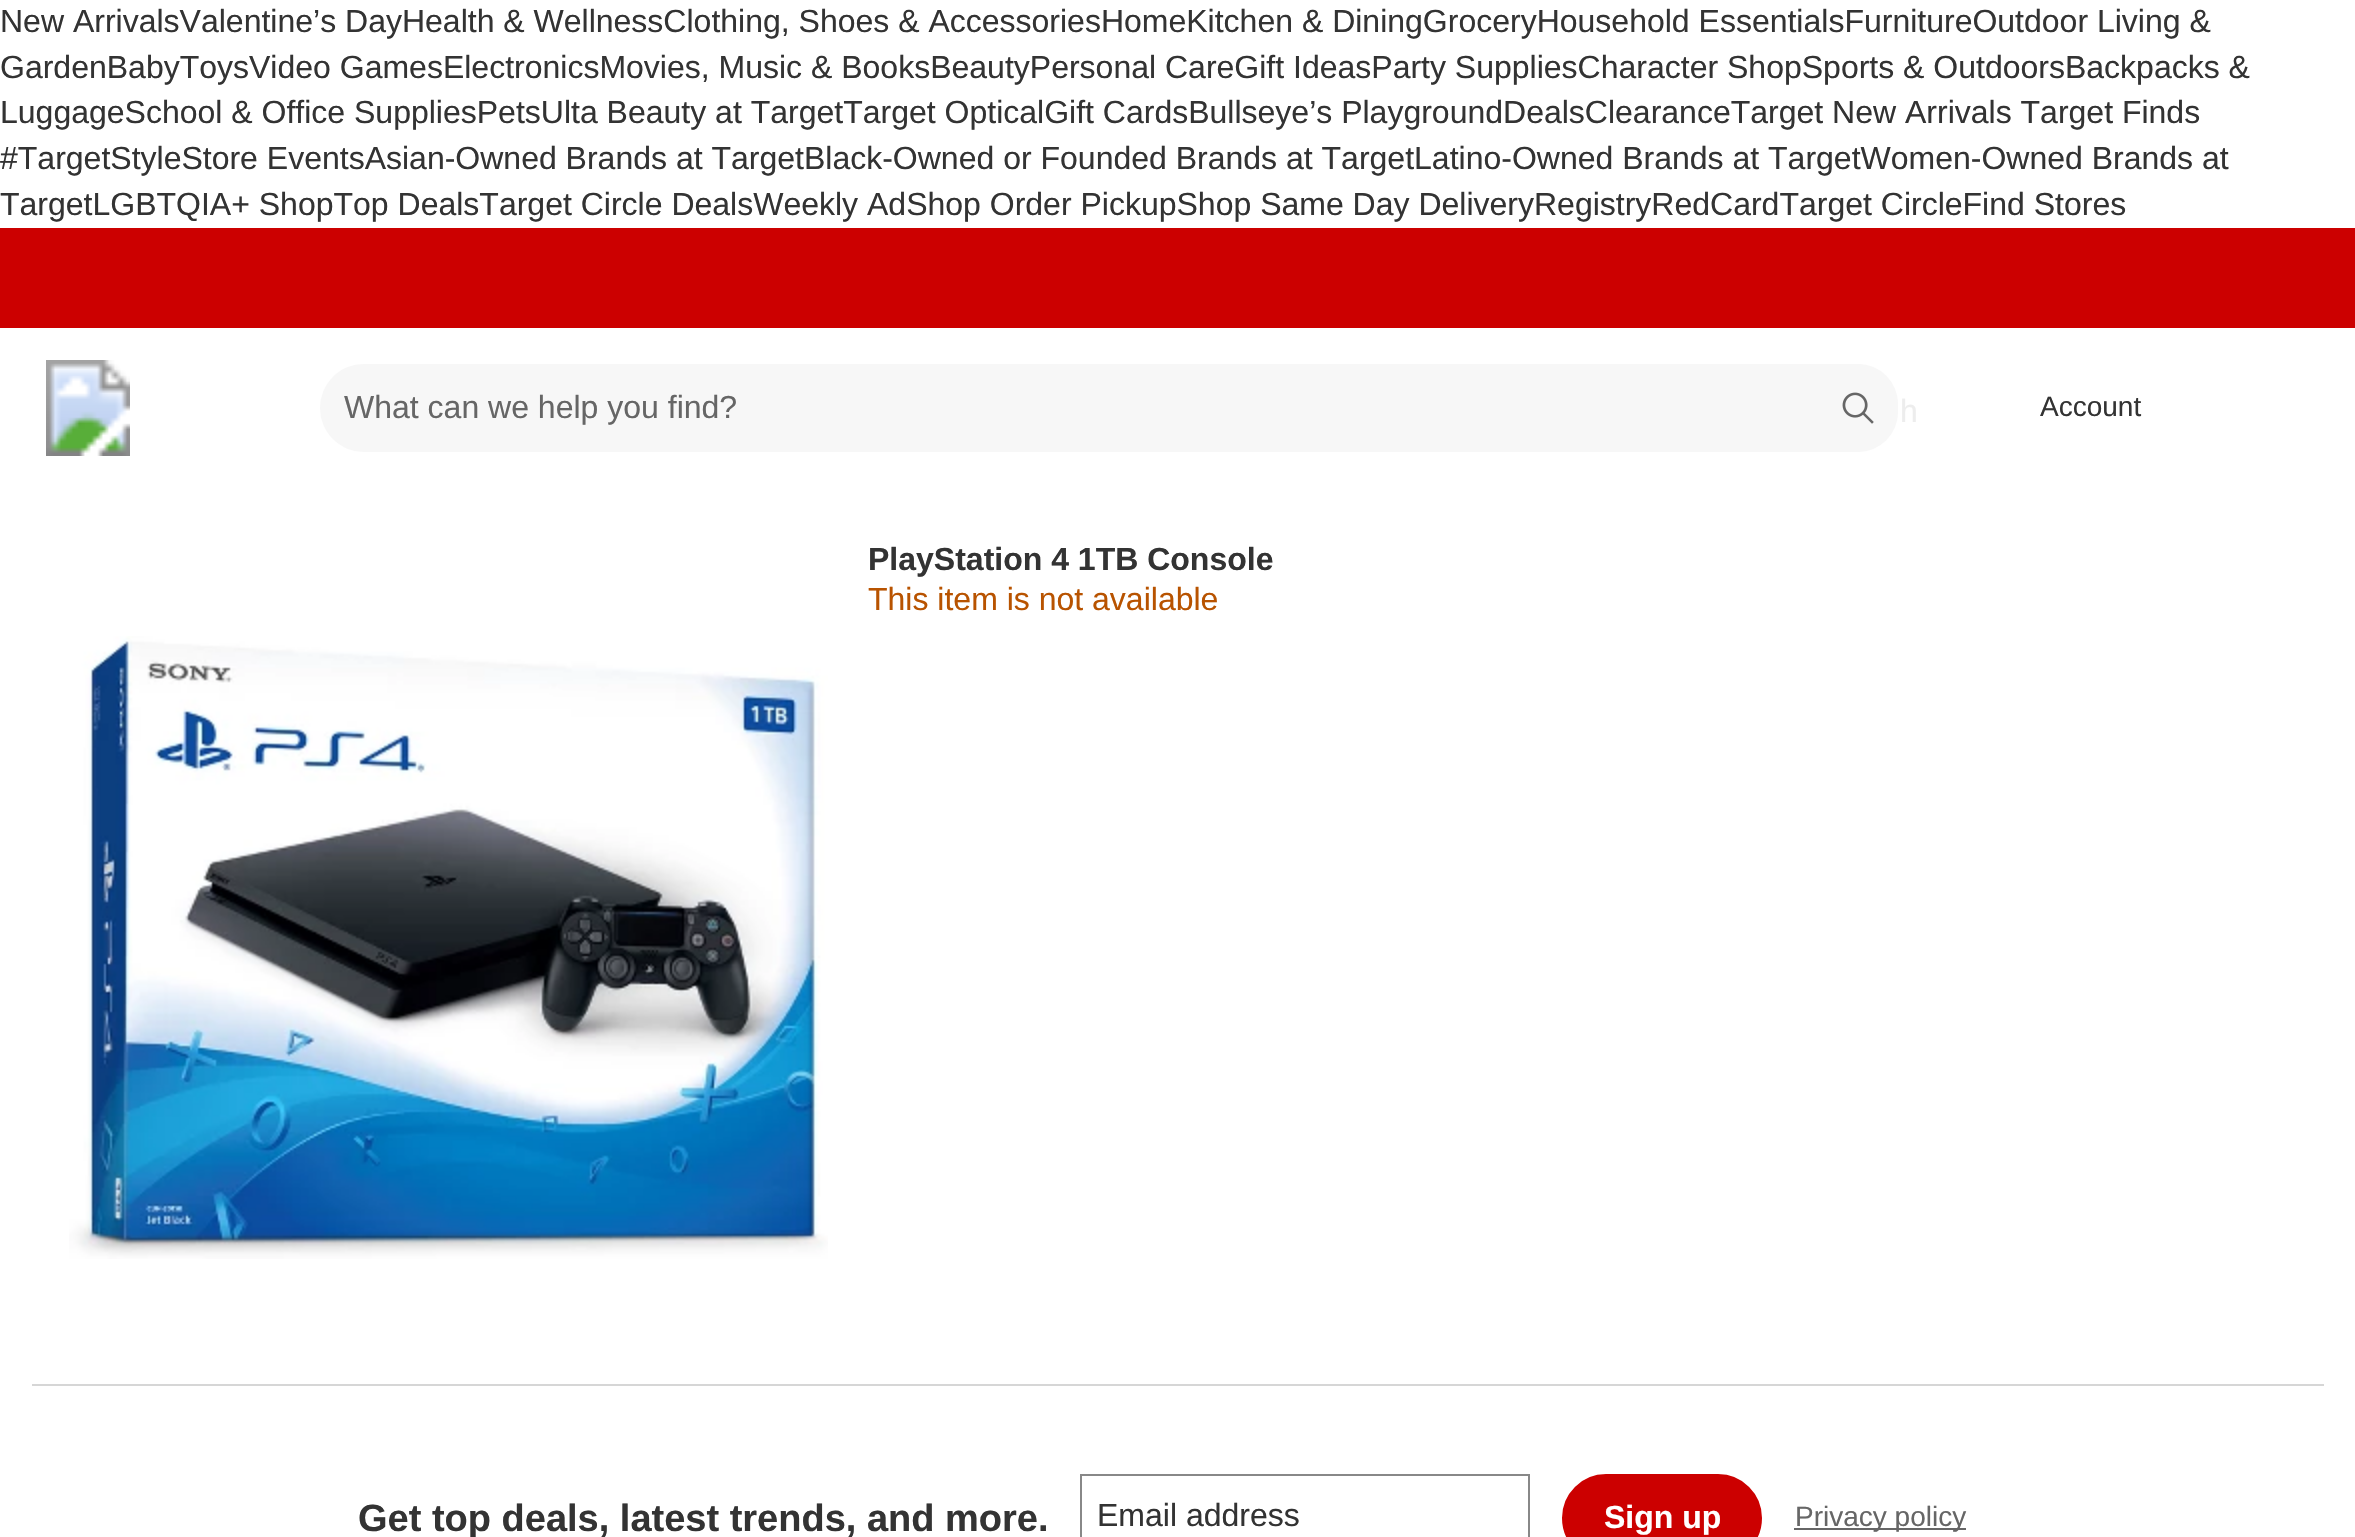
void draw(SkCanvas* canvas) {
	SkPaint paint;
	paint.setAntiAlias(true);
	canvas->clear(0xffffffff);
	SkFont f1(fontMgr->matchFamilyStyle("Liberation Sans", SkFontStyle::Normal()), 32);
	f1.setSubpixel(true);
	paint.setColor(0xff333333);
	canvas->drawString("New ArrivalsValentine’s DayHealth & WellnessClothing, Shoes & AccessoriesHomeKitchen & DiningGroceryHousehold EssentialsFurnitureOutdoor Living &", 0, 32, f1, paint);
	canvas->drawString("GardenBabyToysVideo GamesElectronicsMovies, Music & BooksBeautyPersonal CareGift IdeasParty SuppliesCharacter ShopSports & OutdoorsBackpacks &", 0, 78, f1, paint);
	canvas->drawString("LuggageSchool & Office SuppliesPetsUlta Beauty at TargetTarget OpticalGift CardsBullseye’s PlaygroundDealsClearanceTarget New Arrivals Target Finds", 0, 123, f1, paint);
	canvas->drawString("#TargetStyleStore EventsAsian-Owned Brands at TargetBlack-Owned or Founded Brands at TargetLatino-Owned Brands at TargetWomen-Owned Brands at", 0, 169, f1, paint);
	canvas->drawString("TargetLGBTQIA+ ShopTop DealsTarget Circle DealsWeekly AdShop Order PickupShop Same Day DeliveryRegistryRedCardTarget CircleFind Stores", 0, 215, f1, paint);
	paint.setColor(0xffcc0000);
	canvas->drawRect(SkRect::MakeXYWH(0, 228, 2355, 100), paint);
	canvas->drawImageRect(SkImages::DeferredFromEncodedData(SkData::MakeFromFileName("img1.png")), SkRect::MakeXYWH(46, 360, 84, 96), SkSamplingOptions());
	paint.setColor(0xfff7f7f7);
	canvas->drawRoundRect(SkRect::MakeXYWH(320, 364, 1578, 88), 44, 44, paint);
	paint.setColor(0xff666666);
	canvas->drawString("What can we help you find?", 344, 418, f1, paint);
	paint.setColor(0xfff7f7f7);
	canvas->drawRoundRect(SkRect::MakeXYWH(1818, 364, 80, 88), 40, 40, paint);
	canvas->drawImageRect(SkImages::DeferredFromEncodedData(SkData::MakeFromFileName("img2.png")), SkRect::MakeXYWH(1842, 392, 32, 32), SkSamplingOptions());
	paint.setColor(0xffededed);
	canvas->drawString("h", 1900, 422, f1, paint);
	SkFont f2(fontMgr->matchFamilyStyle("Liberation Sans", SkFontStyle::Normal()), 28);
	f2.setSubpixel(true);
	paint.setColor(0xff333333);
	canvas->drawString("Account", 2040, 416, f2, paint);
	SkFont f3(fontMgr->matchFamilyStyle("Liberation Sans", SkFontStyle::Bold()), 32);
	f3.setSubpixel(true);
	canvas->drawString("PlayStation 4 1TB Console", 868, 570, f3, paint);
	paint.setColor(0xffb85300);
	canvas->drawString("This item is not available", 868, 610, f1, paint);
	canvas->drawImageRect(SkImages::DeferredFromEncodedData(SkData::MakeFromFileName("img3.png")), SkRect::MakeXYWH(69, 636, 759, 623), SkSamplingOptions());
	paint.setColor(0xffd6d6d6);
	canvas->drawRect(SkRect::MakeXYWH(32, 1384, 2292, 2), paint);
	SkFont f4(fontMgr->matchFamilyStyle("Liberation Sans", SkFontStyle::Bold()), 38);
	f4.setSubpixel(true);
	paint.setColor(0xff333333);
	canvas->drawString("Get top deals, latest trends, and more.", 358, 1531, f4, paint);
	paint.setStroke(true);
	paint.setStrokeWidth(2);
	paint.setColor(0xff888888);
	canvas->drawRect(SkRect::MakeXYWH(1081, 1475, 448, 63), paint);
	paint.setStroke(false);
	paint.setColor(0xff333333);
	canvas->drawString("Email address", 1097, 1526, f1, paint);
	paint.setColor(0xffcc0000);
	canvas->drawRoundRect(SkRect::MakeXYWH(1563, 1475, 198, 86), 43, 43, paint);
	paint.setStroke(true);
	canvas->drawRoundRect(SkRect::MakeXYWH(1563, 1475, 198, 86), 43, 43, paint);
	paint.setStroke(false);
	paint.setColor(0xffffffff);
	canvas->drawString("Sign up", 1604, 1528, f3, paint);
	paint.setColor(0xff666666);
	canvas->drawRect(SkRect::MakeXYWH(1794, 1528, 172, 2), paint);
	canvas->drawString("Privacy policy", 1795, 1526, f2, paint);
}
